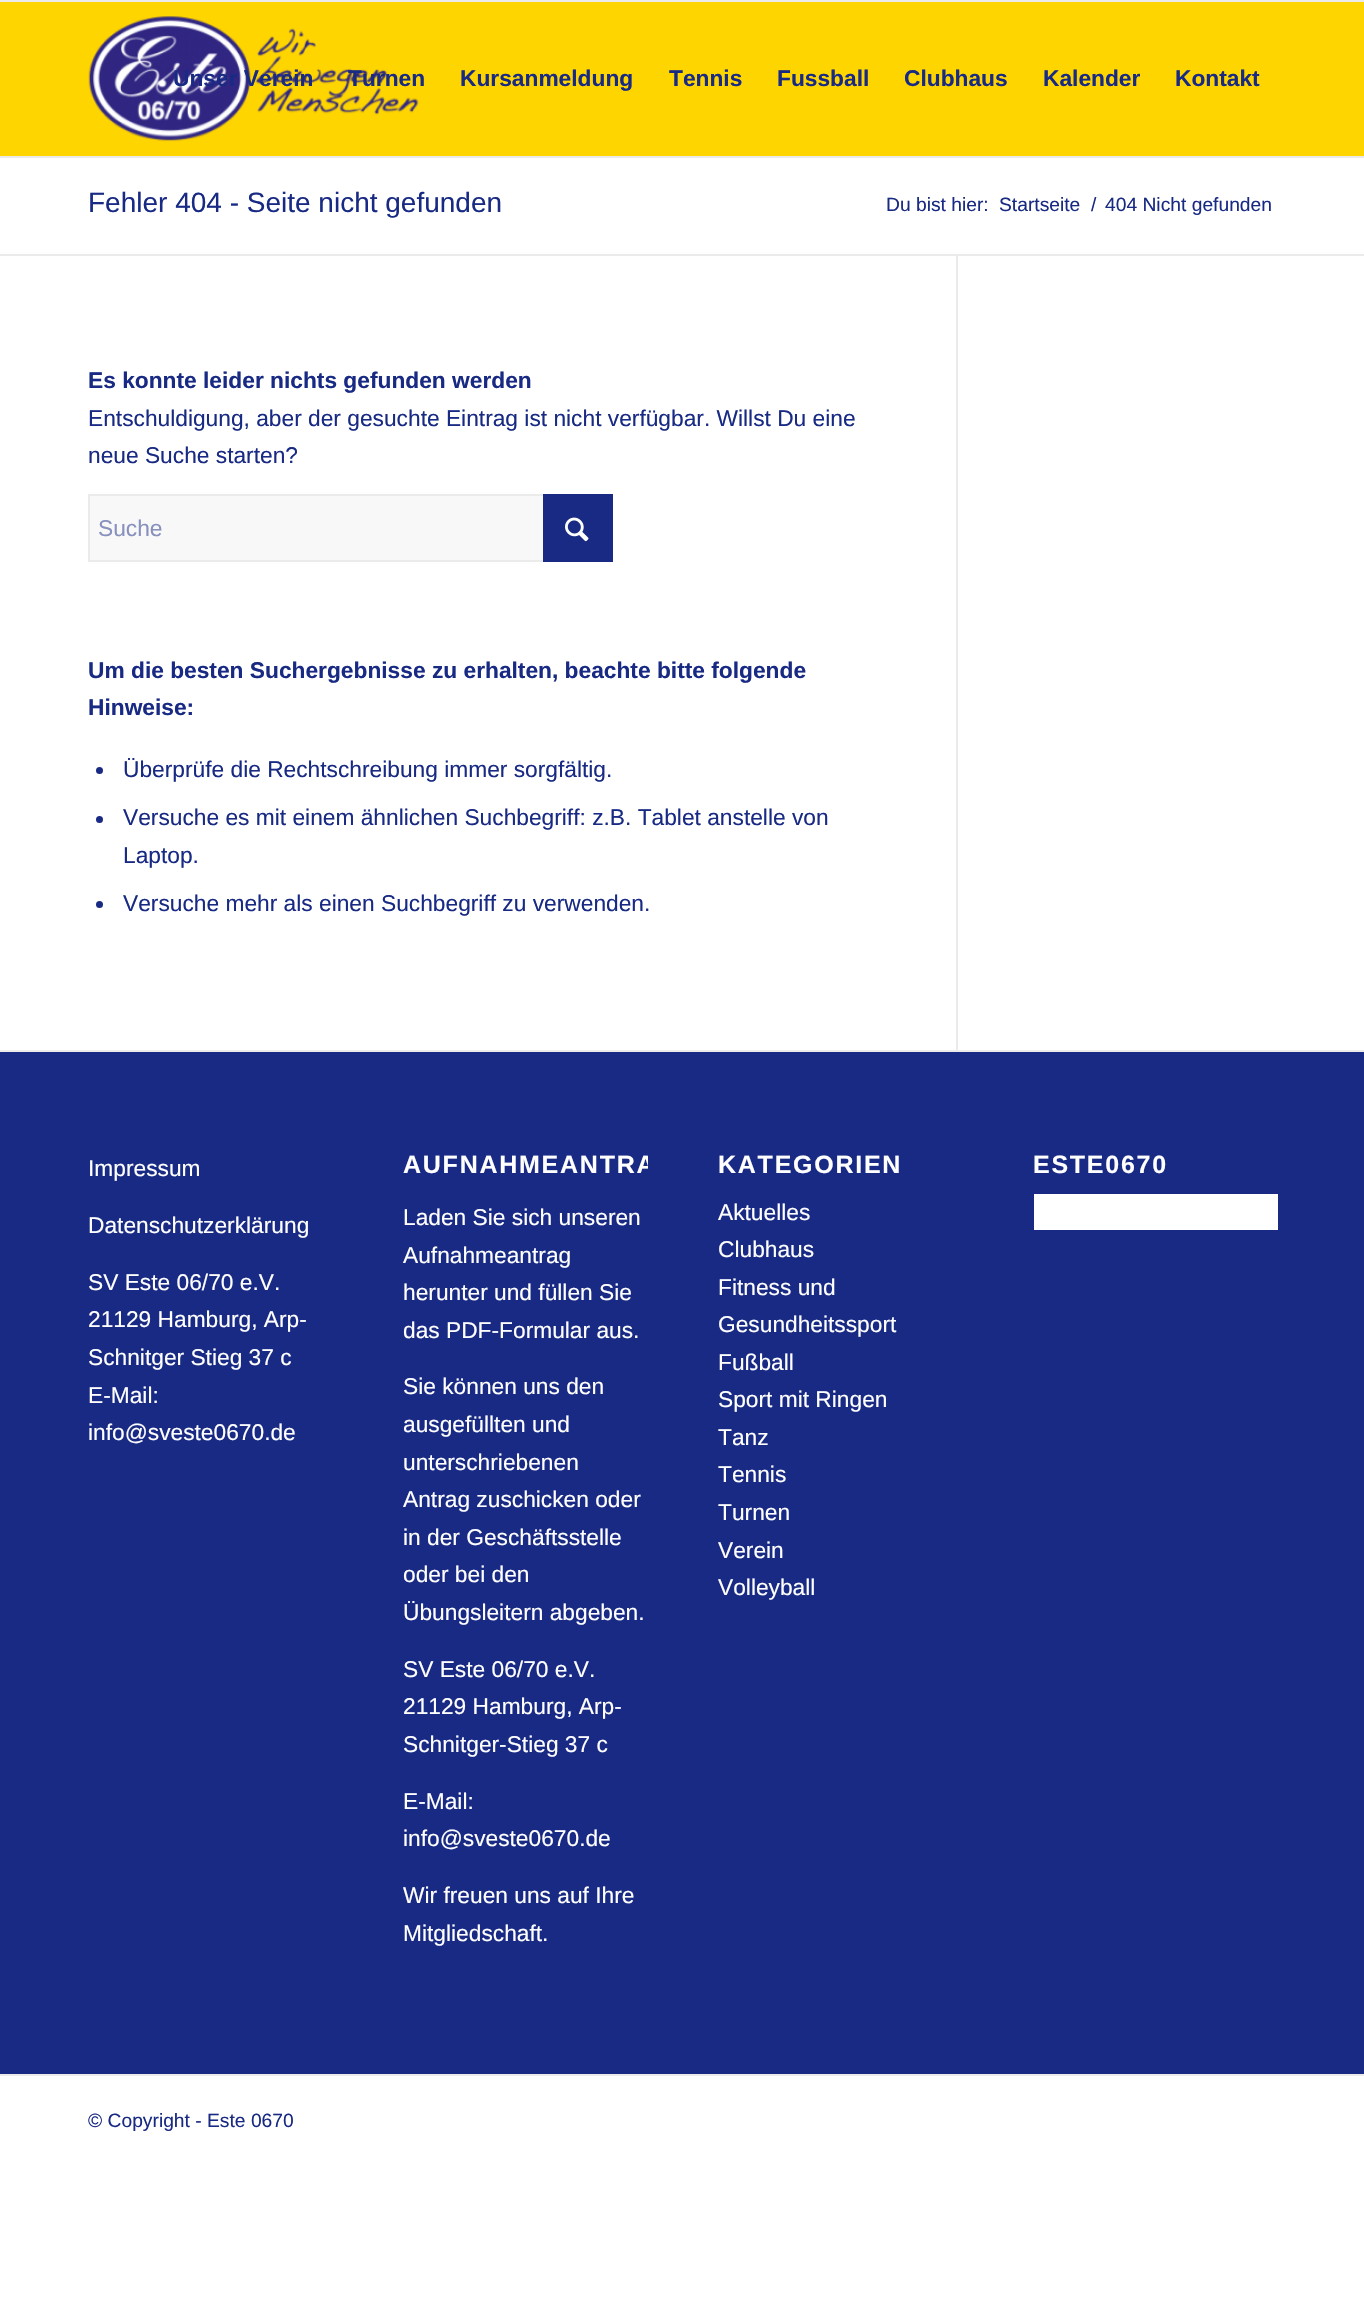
void draw(SkCanvas* canvas) {
	SkPaint paint;
	paint.setAntiAlias(true);
	auto spacedText = [&](const char* s, float x, float y, const SkFont& font, const SkPaint& ink, float letter, float word) {
		std::vector<SkGlyphID> glyphs(font.countText(s, strlen(s), SkTextEncoding::kUTF8));
		std::vector<float> xs(glyphs.size());
		font.textToGlyphs(s, strlen(s), SkTextEncoding::kUTF8, glyphs);
		font.getXPos(glyphs, xs, x);
		float extra = 0;
		for (size_t i = 0; i < glyphs.size(); i++) {
			xs[i] += extra;
			extra += letter + word * (glyphs[i] == font.unicharToGlyph(' '));
		}
		canvas->drawTextBlob(SkTextBlob::MakeFromPosHGlyphs(glyphs, xs, y, font), 0, 0, ink);
	};
	canvas->clear(0xffffffff);
	paint.setColor(0xffffd500);
	canvas->drawRect(SkRect::MakeXYWH(0, 2, 1364, 154), paint);
	paint.setColor(0xffebebeb);
	canvas->drawRect(SkRect::MakeXYWH(0, 0, 1364, 2), paint);
	canvas->drawRect(SkRect::MakeXYWH(0, 156, 1364, 2), paint);
	canvas->drawImageRect(SkImages::DeferredFromEncodedData(SkData::MakeFromFileName("img1.png")), SkRect::MakeXYWH(88, 16, 331, 126), SkSamplingOptions());
	SkFont f1(fontMgr->matchFamilyStyle("Liberation Sans", SkFontStyle::Bold()), 22.75);
	f1.setSubpixel(true);
	paint.setColor(0xff182a83);
	canvas->drawString("Unser Verein", 173, 86, f1, paint);
	canvas->drawString("Turnen", 348, 86, f1, paint);
	canvas->drawString("Kursanmeldung", 460, 86, f1, paint);
	canvas->drawString("Tennis", 669, 86, f1, paint);
	canvas->drawString("Fussball", 777, 86, f1, paint);
	canvas->drawString("Clubhaus", 904, 86, f1, paint);
	canvas->drawString("Kalender", 1043, 86, f1, paint);
	canvas->drawString("Kontakt", 1175, 86, f1, paint);
	SkFont f2(fontMgr->matchFamilyStyle("Liberation Sans", SkFontStyle::Normal()), 28);
	f2.setSubpixel(true);
	canvas->drawString("Fehler 404 - Seite nicht gefunden", 88, 212, f2, paint);
	SkFont f3(fontMgr->matchFamilyStyle("Liberation Sans", SkFontStyle::Normal()), 19.25);
	f3.setSubpixel(true);
	canvas->drawString("Du bist hier:", 886, 211, f3, paint);
	canvas->drawString("Startseite", 999, 211, f3, paint);
	canvas->drawString("/", 1091, 211, f3, paint);
	canvas->drawString("404 Nicht gefunden", 1105, 211, f3, paint);
	paint.setColor(0xffebebeb);
	canvas->drawRect(SkRect::MakeXYWH(0, 254, 1364, 2), paint);
	canvas->drawRect(SkRect::MakeXYWH(956, 256, 2, 794), paint);
	paint.setColor(0xff182a83);
	canvas->drawString("Es konnte leider nichts gefunden werden", 88, 388, f1, paint);
	SkFont f4(fontMgr->matchFamilyStyle("Liberation Sans", SkFontStyle::Normal()), 22.75);
	f4.setSubpixel(true);
	canvas->drawString("Entschuldigung, aber der gesuchte Eintrag ist nicht verfügbar. Willst Du eine", 88, 426, f4, paint);
	canvas->drawString("neue Suche starten?", 88, 463, f4, paint);
	paint.setColor(0xfff8f8f8);
	canvas->drawRect(SkRect::MakeXYWH(90, 496, 453, 64), paint);
	paint.setStroke(true);
	paint.setStrokeWidth(2);
	paint.setColor(0xffebebeb);
	canvas->drawRect(SkRect::MakeXYWH(89, 495, 523, 66), paint);
	paint.setStroke(false);
	paint.setColor(0xff182a83);
	canvas->drawRect(SkRect::MakeXYWH(543, 494, 70, 68), paint);
	paint.setColor(0xff8891be);
	canvas->drawString("Suche", 98, 536, f4, paint);
	canvas->drawImageRect(SkImages::DeferredFromEncodedData(SkData::MakeFromFileName("img2.png")), SkRect::MakeXYWH(565, 517, 24, 25), SkSamplingOptions());
	paint.setColor(0xff182a83);
	canvas->drawString("Um die besten Suchergebnisse zu erhalten, beachte bitte folgende", 88, 678, f1, paint);
	canvas->drawString("Hinweise:", 88, 715, f1, paint);
	canvas->drawCircle(99.5, 770.5, 3.5, paint);
	canvas->drawString("Überprüfe die Rechtschreibung immer sorgfältig.", 123, 777, f4, paint);
	canvas->drawCircle(99.5, 819.5, 3.5, paint);
	canvas->drawString("Versuche es mit einem ähnlichen Suchbegriff: z.B. Tablet anstelle von", 123, 825, f4, paint);
	canvas->drawString("Laptop.", 123, 863, f4, paint);
	canvas->drawCircle(99.5, 904.5, 3.5, paint);
	canvas->drawString("Versuche mehr als einen Suchbegriff zu verwenden.", 123, 911, f4, paint);
	canvas->drawRect(SkRect::MakeXYWH(0, 1052, 1364, 1022), paint);
	paint.setColor(0xffebebeb);
	canvas->drawRect(SkRect::MakeXYWH(0, 1050, 1364, 2), paint);
	paint.setColor(0xffffffff);
	canvas->drawString("Impressum", 88, 1176, f4, paint);
	canvas->drawString("Datenschutzerklärung", 88, 1233, f4, paint);
	canvas->drawString("SV Este 06/70 e.V.", 88, 1290, f4, paint);
	canvas->drawString("21129 Hamburg, Arp-", 88, 1327, f4, paint);
	canvas->drawString("Schnitger Stieg 37 c", 88, 1365, f4, paint);
	canvas->drawString("E-Mail:", 88, 1403, f4, paint);
	canvas->drawString("info@sveste0670.de", 88, 1440, f4, paint);
	canvas->save();
	canvas->clipRect(SkRect::MakeXYWH(403, 1131, 245, 840));
	SkFont f5(fontMgr->matchFamilyStyle("Liberation Sans", SkFontStyle::Bold()), 25);
	f5.setSubpixel(true);
	spacedText("AUFNAHMEANTRA", 403, 1173, f5, paint, 1.75, 0);
	canvas->restore();
	canvas->drawString("Laden Sie sich unseren", 403, 1225, f4, paint);
	canvas->drawString("Aufnahmeantrag", 403, 1263, f4, paint);
	canvas->drawString("herunter und füllen Sie", 403, 1300, f4, paint);
	canvas->drawString("das PDF-Formular aus.", 403, 1338, f4, paint);
	canvas->drawString("Sie können uns den", 403, 1394, f4, paint);
	canvas->drawString("ausgefüllten und", 403, 1432, f4, paint);
	canvas->drawString("unterschriebenen", 403, 1470, f4, paint);
	canvas->drawString("Antrag zuschicken oder", 403, 1507, f4, paint);
	canvas->drawString("in der Geschäftsstelle", 403, 1545, f4, paint);
	canvas->drawString("oder bei den", 403, 1582, f4, paint);
	canvas->drawString("Übungsleitern abgeben.", 403, 1620, f4, paint);
	canvas->drawString("SV Este 06/70 e.V.", 403, 1677, f4, paint);
	canvas->drawString("21129 Hamburg, Arp-", 403, 1714, f4, paint);
	canvas->drawString("Schnitger-Stieg 37 c", 403, 1752, f4, paint);
	canvas->drawString("E-Mail:", 403, 1809, f4, paint);
	canvas->drawString("info@sveste0670.de", 403, 1846, f4, paint);
	canvas->drawString("Wir freuen uns auf Ihre", 403, 1903, f4, paint);
	canvas->drawString("Mitgliedschaft.", 403, 1941, f4, paint);
	spacedText("KATEGORIEN", 718, 1173, f5, paint, 1.75, 0);
	canvas->drawString("Aktuelles", 718, 1220, f4, paint);
	canvas->drawString("Clubhaus", 718, 1257, f4, paint);
	canvas->drawString("Fitness und", 718, 1295, f4, paint);
	canvas->drawString("Gesundheitssport", 718, 1332, f4, paint);
	canvas->drawString("Fußball", 718, 1370, f4, paint);
	canvas->drawString("Sport mit Ringen", 718, 1407, f4, paint);
	canvas->drawString("Tanz", 718, 1445, f4, paint);
	canvas->drawString("Tennis", 718, 1482, f4, paint);
	canvas->drawString("Turnen", 718, 1520, f4, paint);
	canvas->drawString("Verein", 718, 1558, f4, paint);
	canvas->drawString("Volleyball", 718, 1595, f4, paint);
	spacedText("ESTE0670", 1033, 1173, f5, paint, 1.75, 0);
	canvas->drawRect(SkRect::MakeXYWH(1034, 1194, 244, 36), paint);
	paint.setColor(0xffebebeb);
	canvas->drawRect(SkRect::MakeXYWH(0, 2074, 1364, 2), paint);
	paint.setColor(0xff182a83);
	canvas->drawString("© Copyright - Este 0670", 88, 2127, f3, paint);
}
